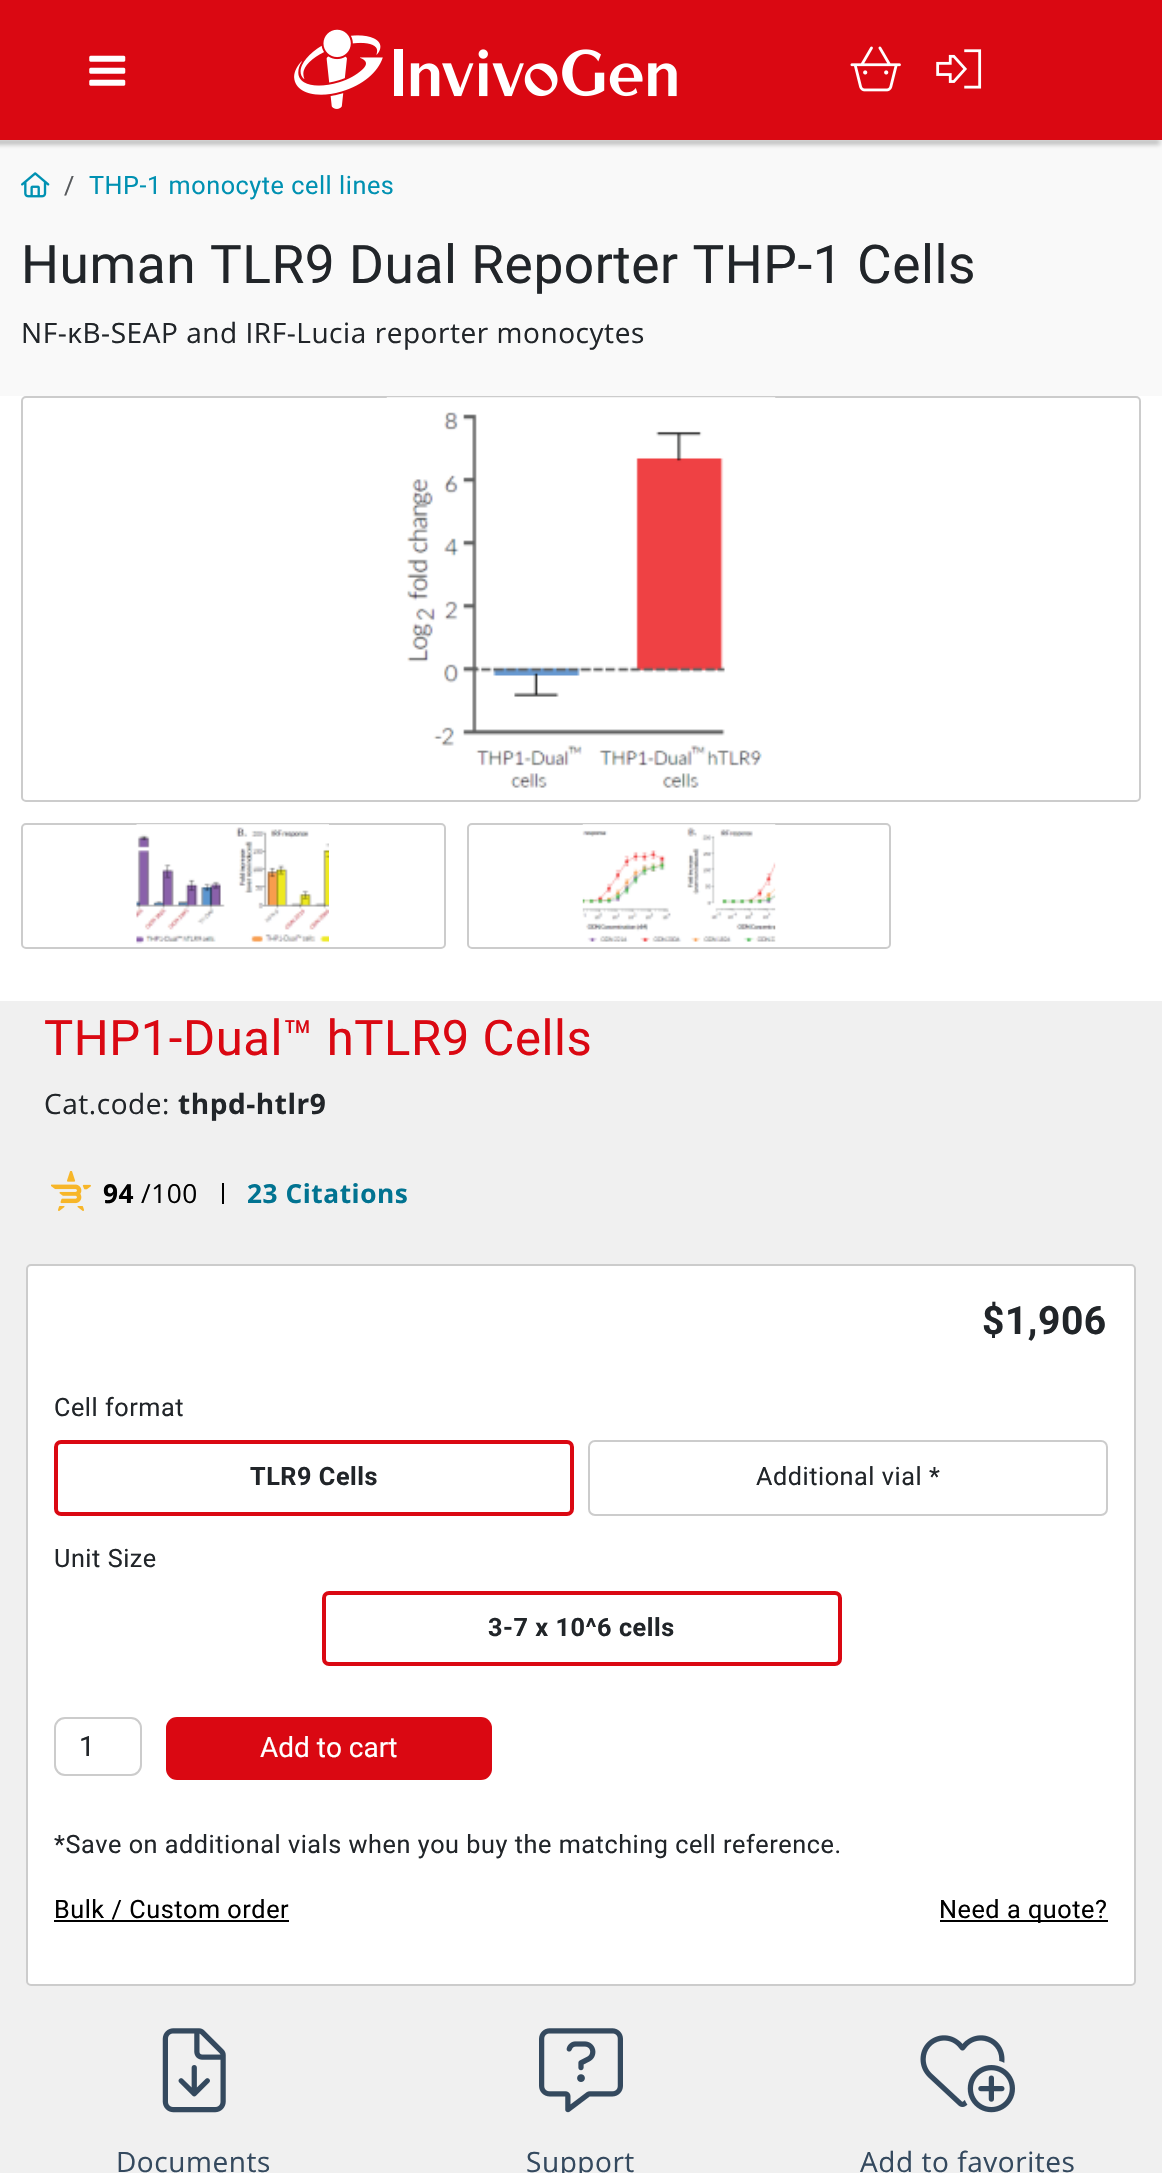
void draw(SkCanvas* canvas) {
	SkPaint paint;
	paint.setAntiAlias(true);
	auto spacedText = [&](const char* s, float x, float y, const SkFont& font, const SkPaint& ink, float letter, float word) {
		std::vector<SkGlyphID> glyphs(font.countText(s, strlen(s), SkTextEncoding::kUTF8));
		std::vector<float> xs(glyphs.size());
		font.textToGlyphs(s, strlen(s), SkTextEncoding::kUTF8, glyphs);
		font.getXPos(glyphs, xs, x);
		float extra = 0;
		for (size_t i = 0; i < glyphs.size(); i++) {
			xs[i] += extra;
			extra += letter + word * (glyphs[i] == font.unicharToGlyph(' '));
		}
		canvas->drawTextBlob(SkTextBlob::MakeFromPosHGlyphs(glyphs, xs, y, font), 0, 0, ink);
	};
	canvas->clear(0xfff9f9f9);
	paint.setColor(0x54000000);
	paint.setMaskFilter(SkMaskFilter::MakeBlur(kNormal_SkBlurStyle, 2.5));
	canvas->drawRect(SkRect::MakeXYWH(-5, 140, 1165, 4), paint);
	paint.setMaskFilter(nullptr);
	paint.setColor(0xffda0812);
	canvas->drawRect(SkRect::MakeXYWH(0, 0, 1162, 140), paint);
	canvas->drawImageRect(SkImages::DeferredFromEncodedData(SkData::MakeFromFileName("img1.png")), SkRect::MakeXYWH(89, 55, 37, 31), SkSamplingOptions());
	canvas->drawImageRect(SkImages::DeferredFromEncodedData(SkData::MakeFromFileName("img2.png")), SkRect::MakeXYWH(294, 29, 383, 80), SkSamplingOptions());
	canvas->drawImageRect(SkImages::DeferredFromEncodedData(SkData::MakeFromFileName("img3.png")), SkRect::MakeXYWH(850, 46, 51, 46), SkSamplingOptions());
	canvas->drawImageRect(SkImages::DeferredFromEncodedData(SkData::MakeFromFileName("img4.png")), SkRect::MakeXYWH(936, 49, 46, 40), SkSamplingOptions());
	canvas->drawImageRect(SkImages::DeferredFromEncodedData(SkData::MakeFromFileName("img5.png")), SkRect::MakeXYWH(21, 172, 29, 26), SkSamplingOptions());
	SkFont f1(fontMgr->matchFamilyStyle("Roboto", SkFontStyle::Normal()), 25.2);
	f1.setSubpixel(true);
	paint.setColor(0xff575a5d);
	spacedText("/", 64, 194, f1, paint, 0.55, 0);
	paint.setColor(0xff0091b2);
	spacedText("THP-1 monocyte cell lines", 89, 194, f1, paint, 0.55, 0);
	SkFont f2(fontMgr->matchFamilyStyle("Roboto", SkFontStyle::Normal()), 53.25);
	f2.setSubpixel(true);
	paint.setColor(0xff212529);
	spacedText("Human TLR9 Dual Reporter THP-1 Cells", 21, 283, f2, paint, 0.55, 0);
	SkFont f3(fontMgr->matchFamilyStyle("Open Sans", SkFontStyle::Normal()), 28);
	f3.setSubpixel(true);
	spacedText("NF-κB-SEAP and IRF-Lucia reporter monocytes", 21, 343, f3, paint, 0.55, 0);
	paint.setColor(0xfff0f0f0);
	canvas->drawRect(SkRect::MakeXYWH(0, 1001, 1162, 1172), paint);
	paint.setColor(0xffffffff);
	canvas->drawRect(SkRect::MakeXYWH(0, 396, 1162, 605), paint);
	paint.setStroke(true);
	paint.setStrokeWidth(2);
	paint.setColor(0xffcccccc);
	canvas->drawRoundRect(SkRect::MakeXYWH(22, 397, 1118, 404), 4, 4, paint);
	canvas->drawImageRect(SkImages::DeferredFromEncodedData(SkData::MakeFromFileName("img6.png")), SkRect::MakeXYWH(386, 397, 390, 391), SkSamplingOptions());
	canvas->drawRoundRect(SkRect::MakeXYWH(22, 824, 423, 124), 4, 4, paint);
	canvas->drawImageRect(SkImages::DeferredFromEncodedData(SkData::MakeFromFileName("img7.png")), SkRect::MakeXYWH(136, 824, 193, 120), SkSamplingOptions());
	canvas->drawRoundRect(SkRect::MakeXYWH(468, 824, 422, 124), 4, 4, paint);
	canvas->drawImageRect(SkImages::DeferredFromEncodedData(SkData::MakeFromFileName("img8.png")), SkRect::MakeXYWH(582, 824, 194, 118), SkSamplingOptions());
	SkFont f4(fontMgr->matchFamilyStyle("Roboto", SkFontStyle::Normal()), 49);
	f4.setSubpixel(true);
	paint.setStroke(false);
	paint.setColor(0xffda0812);
	spacedText("THP1-Dual™ hTLR9 Cells", 44, 1055, f4, paint, 0.55, 0);
	paint.setColor(0xff212529);
	spacedText("Cat.code:", 44, 1114, f3, paint, 0.55, 0);
	SkFont f5(fontMgr->matchFamilyStyle("Open Sans", SkFontStyle::Bold()), 28);
	f5.setSubpixel(true);
	spacedText("thpd-htlr9", 178, 1114, f5, paint, 0.55, 0);
	canvas->drawImageRect(SkImages::DeferredFromEncodedData(SkData::MakeFromFileName("img9.png")), SkRect::MakeXYWH(51, 1171, 40, 40), SkSamplingOptions());
	SkFont f6(fontMgr->matchFamilyStyle("Open Sans", SkFontStyle::Bold()), 26.25);
	f6.setSubpixel(true);
	paint.setColor(0xff000000);
	spacedText("94", 103, 1203, f6, paint, 0.55, 0);
	SkFont f7(fontMgr->matchFamilyStyle("Open Sans", SkFontStyle::Normal()), 26.25);
	f7.setSubpixel(true);
	spacedText("/100", 141, 1203, f7, paint, 0.55, 0);
	canvas->drawRect(SkRect::MakeXYWH(222, 1183, 2, 21), paint);
	paint.setColor(0xff017391);
	spacedText("23 Citations", 247, 1203, f6, paint, 0.55, 0);
	paint.setColor(0xffffffff);
	canvas->drawRoundRect(SkRect::MakeXYWH(27, 1265, 1108, 720), 4, 4, paint);
	paint.setStroke(true);
	paint.setColor(0xffcccccc);
	canvas->drawRoundRect(SkRect::MakeXYWH(27, 1265, 1108, 720), 4, 4, paint);
	SkFont f8(fontMgr->matchFamilyStyle("Roboto", SkFontStyle::Bold()), 39);
	f8.setSubpixel(true);
	paint.setStroke(false);
	paint.setColor(0xff212529);
	spacedText("$1,906", 982, 1334, f8, paint, 0.55, 0);
	spacedText("Cell format", 54, 1416, f1, paint, 0.55, 0);
	paint.setStroke(true);
	paint.setStrokeWidth(4);
	paint.setColor(0xffda0812);
	canvas->drawRoundRect(SkRect::MakeXYWH(56, 1442, 516, 72), 5, 5, paint);
	SkFont f9(fontMgr->matchFamilyStyle("Roboto", SkFontStyle::Bold()), 25.2);
	f9.setSubpixel(true);
	paint.setStroke(false);
	paint.setColor(0xff212529);
	spacedText("TLR9 Cells", 250, 1485, f9, paint, 0.55, 0);
	paint.setStroke(true);
	paint.setStrokeWidth(2);
	paint.setColor(0xffcccccc);
	canvas->drawRoundRect(SkRect::MakeXYWH(589, 1441, 518, 74), 6, 6, paint);
	paint.setStroke(false);
	paint.setColor(0xff212529);
	spacedText("Additional vial *", 756, 1485, f1, paint, 0.55, 0);
	spacedText("Unit Size", 54, 1567, f1, paint, 0.55, 0);
	paint.setStroke(true);
	paint.setStrokeWidth(4);
	paint.setColor(0xffda0812);
	canvas->drawRoundRect(SkRect::MakeXYWH(324, 1593, 516, 71), 5, 5, paint);
	paint.setStroke(false);
	paint.setColor(0xff212529);
	spacedText("3-7 x 10^6 cells", 488, 1636, f9, paint, 0.55, 0);
	paint.setStroke(true);
	paint.setStrokeWidth(2);
	paint.setColor(0xffcccccc);
	canvas->drawRoundRect(SkRect::MakeXYWH(55, 1718, 86, 57), 10, 10, paint);
	SkFont f10(fontMgr->matchFamilyStyle("Roboto", SkFontStyle::Normal()), 28);
	f10.setSubpixel(true);
	paint.setStroke(false);
	paint.setColor(0xff212529);
	canvas->drawString("1", 79, 1756, f10, paint);
	paint.setColor(0xffda0812);
	canvas->drawRoundRect(SkRect::MakeXYWH(166, 1717, 326, 63), 11, 11, paint);
	paint.setColor(0xffffffff);
	canvas->drawString("Add to cart", 260, 1757, f10, paint);
	paint.setColor(0xff212529);
	spacedText("*Save on additional vials when you buy the matching cell reference.", 54, 1853, f1, paint, 0.55, 0);
	paint.setColor(0xff000000);
	spacedText("Bulk / Custom order", 54, 1918, f1, paint, 0.55, 0);
	canvas->drawRect(SkRect::MakeXYWH(54, 1920, 235, 2), paint);
	canvas->drawRect(SkRect::MakeXYWH(940, 1920, 168, 2), paint);
	spacedText("Need a quote?", 939, 1918, f1, paint, 0.55, 0);
	canvas->drawImageRect(SkImages::DeferredFromEncodedData(SkData::MakeFromFileName("img10.png")), SkRect::MakeXYWH(162, 2028, 64, 85), SkSamplingOptions());
	paint.setColor(0xff34495e);
	spacedText("Documents", 116, 2172, f3, paint, 0.55, 0);
	canvas->drawImageRect(SkImages::DeferredFromEncodedData(SkData::MakeFromFileName("img11.png")), SkRect::MakeXYWH(539, 2028, 84, 85), SkSamplingOptions());
	spacedText("Support", 526, 2172, f3, paint, 0.55, 0);
	canvas->drawImageRect(SkImages::DeferredFromEncodedData(SkData::MakeFromFileName("img12.png")), SkRect::MakeXYWH(920, 2035, 95, 78), SkSamplingOptions());
	spacedText("Add to favorites", 860, 2172, f3, paint, 0.55, 0);
}
